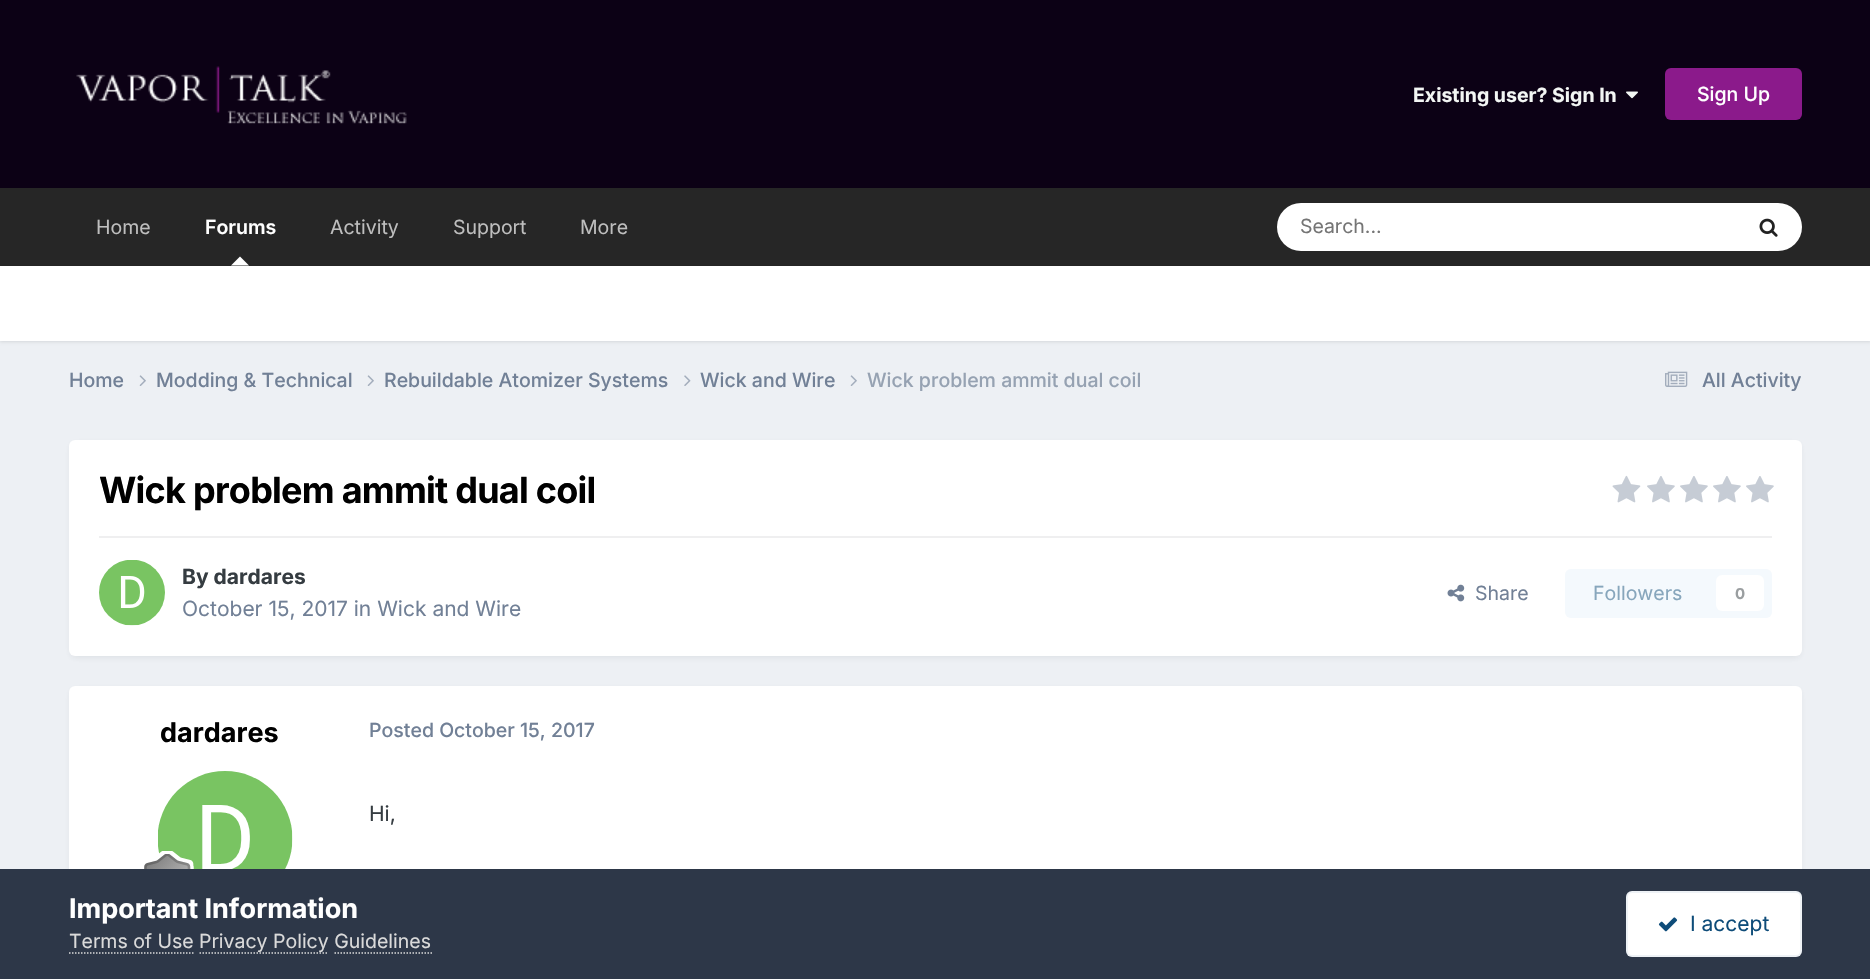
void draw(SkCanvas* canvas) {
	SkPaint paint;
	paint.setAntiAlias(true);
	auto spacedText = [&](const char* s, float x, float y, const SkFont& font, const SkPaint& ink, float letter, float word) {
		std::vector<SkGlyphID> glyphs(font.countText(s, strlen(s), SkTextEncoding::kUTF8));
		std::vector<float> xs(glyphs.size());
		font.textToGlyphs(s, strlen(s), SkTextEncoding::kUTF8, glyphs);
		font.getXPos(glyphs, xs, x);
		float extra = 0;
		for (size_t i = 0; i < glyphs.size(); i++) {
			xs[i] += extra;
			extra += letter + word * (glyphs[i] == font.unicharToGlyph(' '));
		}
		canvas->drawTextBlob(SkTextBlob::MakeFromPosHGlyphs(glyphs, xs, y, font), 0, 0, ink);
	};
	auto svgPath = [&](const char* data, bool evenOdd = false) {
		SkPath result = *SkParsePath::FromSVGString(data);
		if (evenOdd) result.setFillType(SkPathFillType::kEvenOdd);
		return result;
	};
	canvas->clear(0xffedf0f4);
	paint.setColor(0xff0c0115);
	canvas->drawRect(SkRect::MakeXYWH(0, 0, 1870, 188), paint);
	canvas->drawImageRect(SkImages::DeferredFromEncodedData(SkData::MakeFromFileName("img1.png")), SkRect::MakeXYWH(76, 66, 331, 58), SkSamplingOptions());
	SkFont f1(fontMgr->matchFamilyStyle("Inter", SkFontStyle::Bold()), 19.5);
	f1.setSubpixel(true);
	paint.setColor(0xfff3f6f4);
	canvas->drawString("Existing user? Sign In", 1413, 102, f1, paint);
	canvas->drawImageRect(SkImages::DeferredFromEncodedData(SkData::MakeFromFileName("img2.png")), SkRect::MakeXYWH(1626, 91, 12, 8), SkSamplingOptions());
	paint.setColor(0xff8b1a8b);
	canvas->drawRoundRect(SkRect::MakeXYWH(1665, 68, 137, 52), 6, 6, paint);
	SkFont f2(fontMgr->matchFamilyStyle("Inter", SkFontStyle(500, SkFontStyle::kNormal_Width, SkFontStyle::kUpright_Slant)), 19.5);
	f2.setSubpixel(true);
	paint.setColor(0xffffffff);
	canvas->drawString("Sign Up", 1697, 101, f2, paint);
	paint.setColor(0xff262626);
	canvas->drawRect(SkRect::MakeXYWH(0, 188, 1870, 78), paint);
	SkFont f3(fontMgr->matchFamilyStyle("Inter", SkFontStyle::Normal()), 19.5);
	f3.setSubpixel(true);
	paint.setColor(0xffbebebe);
	canvas->drawString("Home", 96, 234, f3, paint);
	SkFont f4(fontMgr->matchFamilyStyle("Inter", SkFontStyle(600, SkFontStyle::kNormal_Width, SkFontStyle::kUpright_Slant)), 19.5);
	f4.setSubpixel(true);
	paint.setColor(0xffffffff);
	canvas->drawString("Forums", 205, 234, f4, paint);
	paint.setColor(0x1a000000);
	paint.setMaskFilter(SkMaskFilter::MakeBlur(kNormal_SkBlurStyle, 1.5));
	canvas->drawRect(SkRect::MakeXYWH(0, 267, 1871, 75), paint);
	paint.setMaskFilter(nullptr);
	paint.setColor(0xffffffff);
	canvas->drawPath(svgPath("M249 265.5H231L240 256.5Z"), paint);
	paint.setColor(0xffbebebe);
	canvas->drawString("Activity", 330, 234, f3, paint);
	canvas->drawString("Support", 453, 234, f3, paint);
	canvas->drawString("More", 580, 234, f3, paint);
	paint.setColor(0xffffffff);
	canvas->drawRoundRect(SkRect::MakeXYWH(1277, 203, 525, 48), 24, 24, paint);
	paint.setColor(0xff757575);
	canvas->drawString("Search...", 1300, 233, f3, paint);
	canvas->drawImageRect(SkImages::DeferredFromEncodedData(SkData::MakeFromFileName("img3.png")), SkRect::MakeXYWH(1759, 218, 19, 19), SkSamplingOptions());
	paint.setColor(0xffffffff);
	canvas->drawRect(SkRect::MakeXYWH(0, 266, 1870, 75), paint);
	paint.setColor(0xff718096);
	canvas->drawString("Home", 69, 387, f2, paint);
	canvas->drawImageRect(SkImages::DeferredFromEncodedData(SkData::MakeFromFileName("img4.png")), SkRect::MakeXYWH(139, 375, 7, 11), SkSamplingOptions());
	canvas->drawString("Modding & Technical", 156, 387, f2, paint);
	canvas->drawImageRect(SkImages::DeferredFromEncodedData(SkData::MakeFromFileName("img4.png")), SkRect::MakeXYWH(367, 375, 7, 11), SkSamplingOptions());
	canvas->drawString("Rebuildable Atomizer Systems", 384, 387, f2, paint);
	canvas->drawImageRect(SkImages::DeferredFromEncodedData(SkData::MakeFromFileName("img5.png")), SkRect::MakeXYWH(684, 375, 7, 11), SkSamplingOptions());
	canvas->drawString("Wick and Wire", 700, 387, f2, paint);
	canvas->drawImageRect(SkImages::DeferredFromEncodedData(SkData::MakeFromFileName("img4.png")), SkRect::MakeXYWH(850, 375, 7, 11), SkSamplingOptions());
	paint.setColor(0xff96a2b2);
	canvas->drawString("Wick problem ammit dual coil", 867, 387, f2, paint);
	canvas->drawImageRect(SkImages::DeferredFromEncodedData(SkData::MakeFromFileName("img6.png")), SkRect::MakeXYWH(1665, 371, 23, 16), SkSamplingOptions());
	paint.setColor(0xff718096);
	canvas->drawString("All Activity", 1702, 387, f2, paint);
	paint.setColor(0x1a2d3748);
	paint.setMaskFilter(SkMaskFilter::MakeBlur(kNormal_SkBlurStyle, 3));
	canvas->drawRoundRect(SkRect::MakeXYWH(71, 444, 1729, 213), 5, 5, paint);
	paint.setMaskFilter(nullptr);
	paint.setColor(0xffffffff);
	canvas->drawRoundRect(SkRect::MakeXYWH(69, 440, 1733, 216), 6, 6, paint);
	SkFont f5(fontMgr->matchFamilyStyle("Inter", SkFontStyle::Bold()), 36);
	f5.setSubpixel(true);
	paint.setColor(0xff000000);
	spacedText("Wick problem ammit dual coil", 99, 503, f5, paint, -0.75, 0);
	canvas->drawImageRect(SkImages::DeferredFromEncodedData(SkData::MakeFromFileName("img7.png")), SkRect::MakeXYWH(1612, 475, 29, 28), SkSamplingOptions());
	canvas->drawImageRect(SkImages::DeferredFromEncodedData(SkData::MakeFromFileName("img8.png")), SkRect::MakeXYWH(1647, 476, 28, 27), SkSamplingOptions());
	canvas->drawImageRect(SkImages::DeferredFromEncodedData(SkData::MakeFromFileName("img8.png")), SkRect::MakeXYWH(1680, 476, 28, 27), SkSamplingOptions());
	canvas->drawImageRect(SkImages::DeferredFromEncodedData(SkData::MakeFromFileName("img8.png")), SkRect::MakeXYWH(1713, 476, 28, 27), SkSamplingOptions());
	canvas->drawImageRect(SkImages::DeferredFromEncodedData(SkData::MakeFromFileName("img8.png")), SkRect::MakeXYWH(1746, 476, 28, 27), SkSamplingOptions());
	paint.setColor(0xffefeff0);
	canvas->drawRect(SkRect::MakeXYWH(99, 536, 1673, 2), paint);
	canvas->drawImageRect(SkImages::DeferredFromEncodedData(SkData::MakeFromFileName("img9.png")), SkRect::MakeXYWH(99, 560, 66, 66), SkSamplingOptions());
	SkFont f6(fontMgr->matchFamilyStyle("Inter", SkFontStyle::Bold()), 21);
	f6.setSubpixel(true);
	paint.setColor(0xff353c41);
	canvas->drawString("By dardares", 182, 584, f6, paint);
	SkFont f7(fontMgr->matchFamilyStyle("Inter", SkFontStyle::Normal()), 21);
	f7.setSubpixel(true);
	paint.setColor(0xff718096);
	canvas->drawString("October 15, 2017 in Wick and Wire", 182, 616, f7, paint);
	canvas->drawImageRect(SkImages::DeferredFromEncodedData(SkData::MakeFromFileName("img10.png")), SkRect::MakeXYWH(1447, 584, 18, 18), SkSamplingOptions());
	canvas->drawString("Share", 1475, 600, f3, paint);
	paint.setColor(0xfff4f9fd);
	canvas->drawRoundRect(SkRect::MakeXYWH(1565, 569, 207, 49), 6, 6, paint);
	paint.setColor(0xff87a6bc);
	canvas->drawString("Followers", 1593, 600, f3, paint);
	paint.setColor(0xffffffff);
	canvas->drawRoundRect(SkRect::MakeXYWH(1716, 575, 48, 36), 6, 6, paint);
	SkFont f8(fontMgr->matchFamilyStyle("Inter", SkFontStyle::Bold()), 15);
	f8.setSubpixel(true);
	paint.setColor(0xff9a9ea0);
	canvas->drawString("0", 1735, 599, f8, paint);
	paint.setColor(0x1a2d3748);
	paint.setMaskFilter(SkMaskFilter::MakeBlur(kNormal_SkBlurStyle, 3));
	canvas->drawRoundRect(SkRect::MakeXYWH(71, 690, 1729, 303), 5, 5, paint);
	paint.setMaskFilter(nullptr);
	paint.setColor(0xffffffff);
	canvas->drawRoundRect(SkRect::MakeXYWH(69, 686, 1733, 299), 6, 6, paint);
	SkFont f9(fontMgr->matchFamilyStyle("Inter", SkFontStyle::Bold()), 27);
	f9.setSubpixel(true);
	paint.setColor(0xff000000);
	canvas->drawString("dardares", 160, 742, f9, paint);
	canvas->drawImageRect(SkImages::DeferredFromEncodedData(SkData::MakeFromFileName("img11.png")), SkRect::MakeXYWH(158, 771, 135, 98), SkSamplingOptions());
	canvas->drawImageRect(SkImages::DeferredFromEncodedData(SkData::MakeFromFileName("img12.png")), SkRect::MakeXYWH(141, 851, 53, 18), SkSamplingOptions());
	paint.setColor(0xff718096);
	canvas->drawString("Posted October 15, 2017", 369, 737, f2, paint);
	paint.setColor(0xff353c41);
	canvas->drawString("Hi,", 369, 821, f7, paint);
	paint.setColor(0xff2d3748);
	canvas->drawRect(SkRect::MakeXYWH(0, 869, 1870, 110), paint);
	paint.setColor(0xffffffff);
	canvas->drawString("Important Information", 69, 918, f9, paint);
	paint.setColor(0xffdadada);
	canvas->drawString("Terms of Use", 69, 948, f3, paint);
	paint.setStroke(true);
	paint.setStrokeWidth(1.5);
	paint.setPathEffect(SkDashPathEffect::Make({{1.5f, 1.5f}}, 0));
	canvas->drawPath(svgPath("M69 953H193.5"), paint);
	paint.setPathEffect(nullptr);
	paint.setPathEffect(SkDashPathEffect::Make({{1.5f, 1.5f}}, 0));
	canvas->drawPath(svgPath("M199.5 953H328.5"), paint);
	paint.setPathEffect(nullptr);
	paint.setStroke(false);
	canvas->drawString("Privacy Policy Guidelines", 199, 948, f3, paint);
	paint.setStroke(true);
	paint.setPathEffect(SkDashPathEffect::Make({{1.5f, 1.5f}}, 0));
	canvas->drawPath(svgPath("M334.5 953H432"), paint);
	paint.setPathEffect(nullptr);
	paint.setStroke(false);
	paint.setColor(0xffffffff);
	canvas->drawRoundRect(SkRect::MakeXYWH(1626, 891, 176, 66), 6, 6, paint);
	paint.setStroke(true);
	paint.setStrokeWidth(2);
	paint.setColor(0x120e4c79);
	canvas->drawRoundRect(SkRect::MakeXYWH(1627, 892, 174, 64), 5, 5, paint);
	canvas->drawImageRect(SkImages::DeferredFromEncodedData(SkData::MakeFromFileName("img13.png")), SkRect::MakeXYWH(1658, 917, 20, 15), SkSamplingOptions());
	paint.setStroke(false);
	paint.setColor(0xff0e4c79);
	canvas->drawString("I accept", 1690, 931, f7, paint);
}
